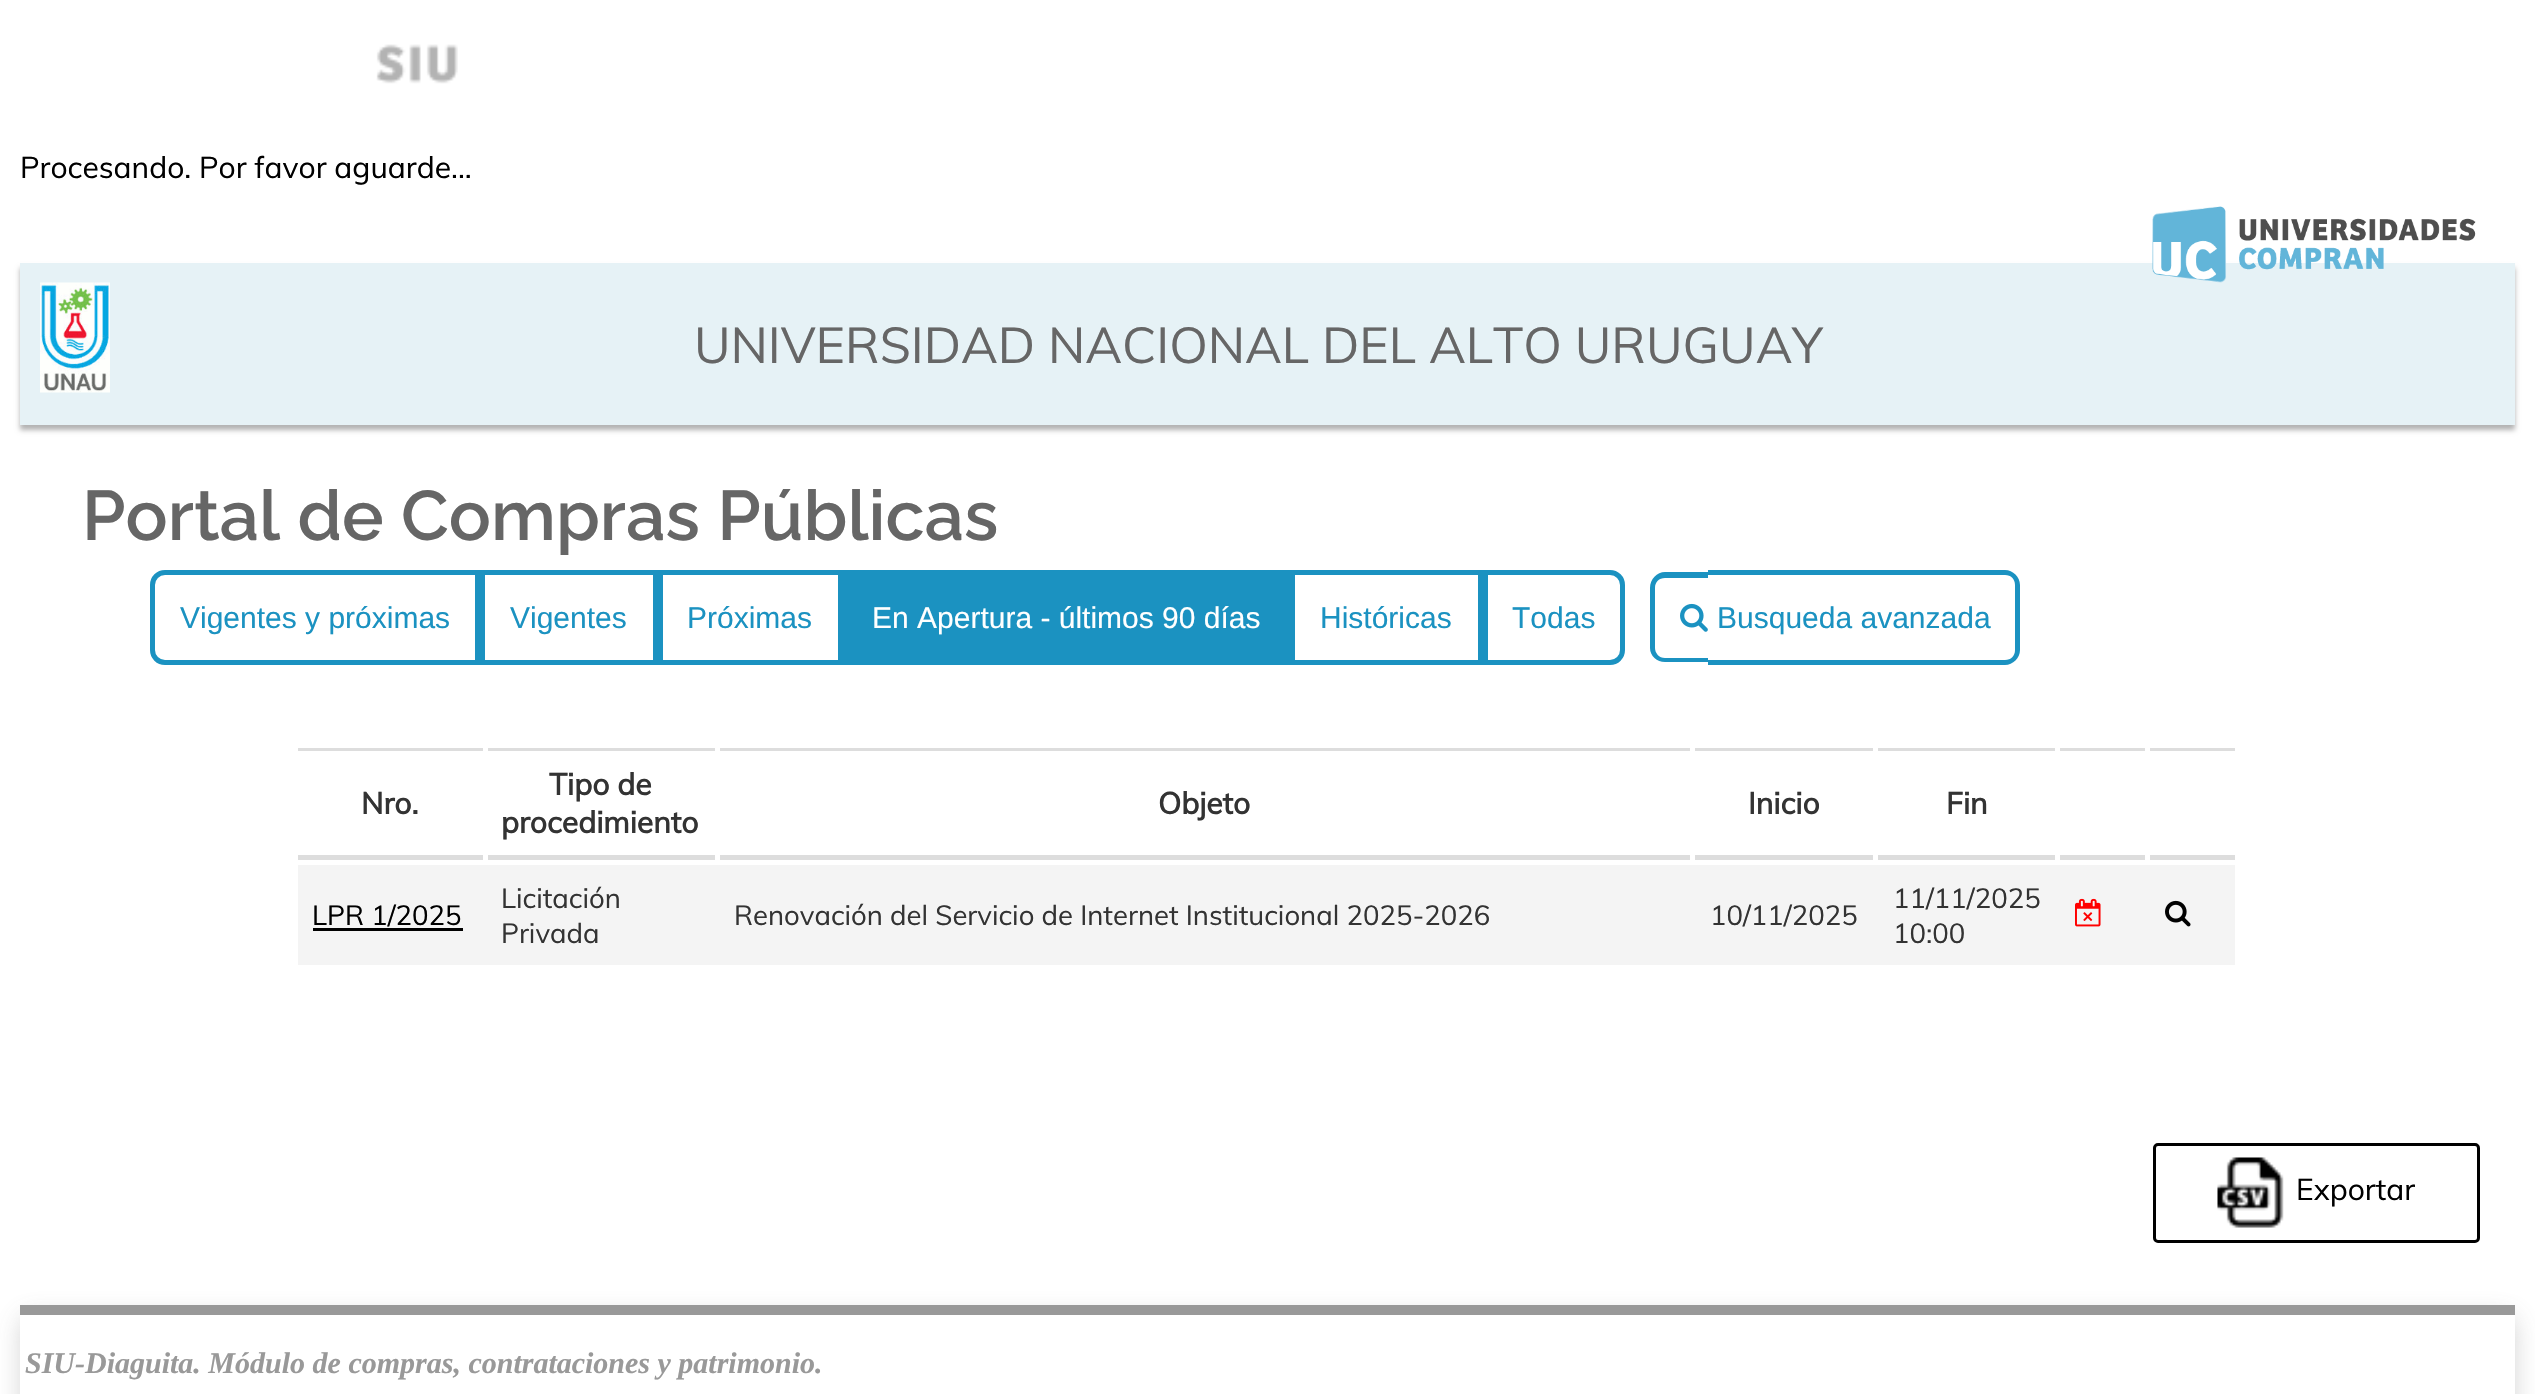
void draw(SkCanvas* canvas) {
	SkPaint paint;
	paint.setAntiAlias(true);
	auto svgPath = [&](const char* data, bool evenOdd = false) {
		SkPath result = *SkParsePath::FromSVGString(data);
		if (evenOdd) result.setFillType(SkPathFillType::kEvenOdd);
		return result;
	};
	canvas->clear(0xffffffff);
	canvas->drawImageRect(SkImages::DeferredFromEncodedData(SkData::MakeFromFileName("img1.png")), SkRect::MakeXYWH(376, 44, 82, 40), SkSamplingOptions());
	SkFont f1(fontMgr->matchFamilyStyle("Muli", SkFontStyle::Normal()), 30);
	f1.setSubpixel(true);
	paint.setColor(0xff000000);
	canvas->drawString("Procesando. Por favor aguarde...", 20, 178, f1, paint);
	paint.setColor(0x4d000000);
	paint.setMaskFilter(SkMaskFilter::MakeBlur(kNormal_SkBlurStyle, 2.5));
	canvas->drawRect(SkRect::MakeXYWH(20, 268, 2495, 162), paint);
	paint.setMaskFilter(nullptr);
	paint.setColor(0xffe6f2f6);
	canvas->drawRect(SkRect::MakeXYWH(20, 263, 2495, 162), paint);
	canvas->drawImageRect(SkImages::DeferredFromEncodedData(SkData::MakeFromFileName("img2.png")), SkRect::MakeXYWH(40, 282, 70, 111), SkSamplingOptions());
	SkFont f2(fontMgr->matchFamilyStyle("Muli", SkFontStyle::Normal()), 50);
	f2.setSubpixel(true);
	paint.setColor(0xff666666);
	canvas->drawString("UNIVERSIDAD NACIONAL DEL ALTO URUGUAY", 694, 363, f2, paint);
	SkFont f3(fontMgr->matchFamilyStyle("Raleway", SkFontStyle(600, SkFontStyle::kNormal_Width, SkFontStyle::kUpright_Slant)), 70);
	f3.setSubpixel(true);
	canvas->drawString("Portal de Compras Públicas", 82, 540, f3, paint);
	canvas->drawImageRect(SkImages::DeferredFromEncodedData(SkData::MakeFromFileName("img3.png")), SkRect::MakeXYWH(2152, 206, 324, 77), SkSamplingOptions());
	paint.setStroke(true);
	paint.setStrokeWidth(5);
	paint.setColor(0xff1b92c1);
	canvas->drawPath(svgPath("M165 572.5H477.5V662.5H165C158 662.5 152.5 657 152.5 650V585C152.5 578 158 572.5 165 572.5Z"), paint);
	SkFont f4(fontMgr->matchFamilyStyle("Liberation Sans", SkFontStyle::Normal()), 30);
	f4.setSubpixel(true);
	paint.setStroke(false);
	canvas->drawString("Vigentes y próximas", 180, 628, f4, paint);
	paint.setStroke(true);
	canvas->drawRect(SkRect::MakeXYWH(482.5, 572.5, 173, 90), paint);
	paint.setStroke(false);
	canvas->drawString("Vigentes", 510, 628, f4, paint);
	paint.setStroke(true);
	canvas->drawRect(SkRect::MakeXYWH(660.5, 572.5, 180, 90), paint);
	paint.setStroke(false);
	canvas->drawString("Próximas", 687, 628, f4, paint);
	canvas->drawRect(SkRect::MakeXYWH(843, 570, 447, 95), paint);
	paint.setColor(0xffffffff);
	canvas->drawString("En Apertura - últimos 90 días", 872, 628, f4, paint);
	paint.setStroke(true);
	paint.setColor(0xff1b92c1);
	canvas->drawRect(SkRect::MakeXYWH(1292.5, 572.5, 188, 90), paint);
	paint.setStroke(false);
	canvas->drawString("Históricas", 1320, 628, f4, paint);
	paint.setStroke(true);
	canvas->drawPath(svgPath("M1485.5 572.5H1610C1617 572.5 1622.5 578 1622.5 585V650C1622.5 657 1617 662.5 1610 662.5H1485.5Z"), paint);
	paint.setStroke(false);
	canvas->drawString("Todas", 1512, 628, f4, paint);
	canvas->drawPath(svgPath("M1665 572H1708V662H1665C1657 662 1650 656 1650 648V588C1650 579 1657 572 1665 572ZM1665 578H1708V658H1665C1659 658 1655 653 1655 648V588C1655 582 1659 578 1665 578Z", true), paint);
	canvas->drawPath(svgPath("M1708 570H2005C2013 570 2020 577 2020 585V650C2020 658 2013 665 2005 665H1708ZM1708 575H2005C2011 575 2015 579 2015 585V650C2015 656 2011 660 2005 660H1708Z", true), paint);
	canvas->drawImageRect(SkImages::DeferredFromEncodedData(SkData::MakeFromFileName("img4.png")), SkRect::MakeXYWH(1680, 603, 28, 29), SkSamplingOptions());
	canvas->drawString("Busqueda avanzada", 1717, 628, f4, paint);
	paint.setColor(0xffdddddd);
	canvas->drawRect(SkRect::MakeXYWH(298, 748, 185, 3), paint);
	canvas->drawRect(SkRect::MakeXYWH(298, 855, 185, 5), paint);
	SkFont f5(fontMgr->matchFamilyStyle("Muli", SkFontStyle::Bold()), 30);
	f5.setSubpixel(true);
	paint.setColor(0xff333333);
	canvas->drawString("Nro.", 361, 814, f5, paint);
	paint.setColor(0xffdddddd);
	canvas->drawRect(SkRect::MakeXYWH(488, 748, 227, 3), paint);
	canvas->drawRect(SkRect::MakeXYWH(488, 855, 227, 5), paint);
	paint.setColor(0xff333333);
	canvas->drawString("Tipo de", 549, 795, f5, paint);
	canvas->drawString("procedimiento", 501, 833, f5, paint);
	paint.setColor(0xffdddddd);
	canvas->drawRect(SkRect::MakeXYWH(720, 748, 970, 3), paint);
	canvas->drawRect(SkRect::MakeXYWH(720, 855, 970, 5), paint);
	paint.setColor(0xff333333);
	canvas->drawString("Objeto", 1158, 814, f5, paint);
	paint.setColor(0xffdddddd);
	canvas->drawRect(SkRect::MakeXYWH(1695, 748, 178, 3), paint);
	canvas->drawRect(SkRect::MakeXYWH(1695, 855, 178, 5), paint);
	paint.setColor(0xff333333);
	canvas->drawString("Inicio", 1748, 814, f5, paint);
	paint.setColor(0xffdddddd);
	canvas->drawRect(SkRect::MakeXYWH(1878, 748, 177, 3), paint);
	canvas->drawRect(SkRect::MakeXYWH(1878, 855, 177, 5), paint);
	paint.setColor(0xff333333);
	canvas->drawString("Fin", 1946, 814, f5, paint);
	paint.setColor(0xffdddddd);
	canvas->drawRect(SkRect::MakeXYWH(2060, 748, 85, 3), paint);
	canvas->drawRect(SkRect::MakeXYWH(2060, 855, 85, 5), paint);
	canvas->drawRect(SkRect::MakeXYWH(2150, 748, 85, 3), paint);
	canvas->drawRect(SkRect::MakeXYWH(2150, 855, 85, 5), paint);
	paint.setColor(0xfff4f4f4);
	canvas->drawRect(SkRect::MakeXYWH(298, 865, 1937, 100), paint);
	SkFont f6(fontMgr->matchFamilyStyle("Muli", SkFontStyle::Normal()), 27.5);
	f6.setSubpixel(true);
	paint.setColor(0xff000000);
	canvas->drawString("LPR 1/2025", 312, 925, f6, paint);
	paint.setColor(0xff010101);
	canvas->drawRect(SkRect::MakeXYWH(313, 928, 150, 3), paint);
	paint.setColor(0xff333333);
	canvas->drawString("Licitación", 501, 908, f6, paint);
	canvas->drawString("Privada", 501, 943, f6, paint);
	canvas->drawString("Renovación del Servicio de Internet Institucional 2025-2026", 734, 925, f6, paint);
	canvas->drawString("10/11/2025", 1710, 925, f6, paint);
	canvas->drawString("11/11/2025", 1893, 908, f6, paint);
	canvas->drawString("10:00", 1893, 943, f6, paint);
	canvas->drawImageRect(SkImages::DeferredFromEncodedData(SkData::MakeFromFileName("img5.png")), SkRect::MakeXYWH(2075, 898, 26, 29), SkSamplingOptions());
	canvas->drawImageRect(SkImages::DeferredFromEncodedData(SkData::MakeFromFileName("img6.png")), SkRect::MakeXYWH(2165, 900, 26, 27), SkSamplingOptions());
	paint.setStroke(true);
	paint.setStrokeWidth(3);
	paint.setColor(0xff000000);
	canvas->drawRoundRect(SkRect::MakeXYWH(2154.5, 1144.5, 324, 97), 3.5, 3.5, paint);
	canvas->drawImageRect(SkImages::DeferredFromEncodedData(SkData::MakeFromFileName("img7.png")), SkRect::MakeXYWH(2217, 1157, 67, 71), SkSamplingOptions());
	paint.setStroke(false);
	canvas->drawString("Exportar", 2296, 1200, f1, paint);
	canvas->save();
	canvas->clipPath(svgPath("M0 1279H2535V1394H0ZM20 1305H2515V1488H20Z", true), true);
	paint.setColor(0xe6c8c8c8);
	paint.setMaskFilter(SkMaskFilter::MakeBlur(kNormal_SkBlurStyle, 12.5));
	canvas->drawRect(SkRect::MakeXYWH(23, 1318, 2490, 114), paint);
	paint.setMaskFilter(nullptr);
	canvas->restore();
	paint.setColor(0xff999999);
	canvas->drawRect(SkRect::MakeXYWH(20, 1305, 2495, 10), paint);
	SkFont f7(fontMgr->matchFamilyStyle("Liberation Serif", SkFontStyle::BoldItalic()), 30);
	f7.setSubpixel(true);
	canvas->drawString("SIU-Diaguita. Módulo de compras, contrataciones y patrimonio.", 25, 1373, f7, paint);
}
